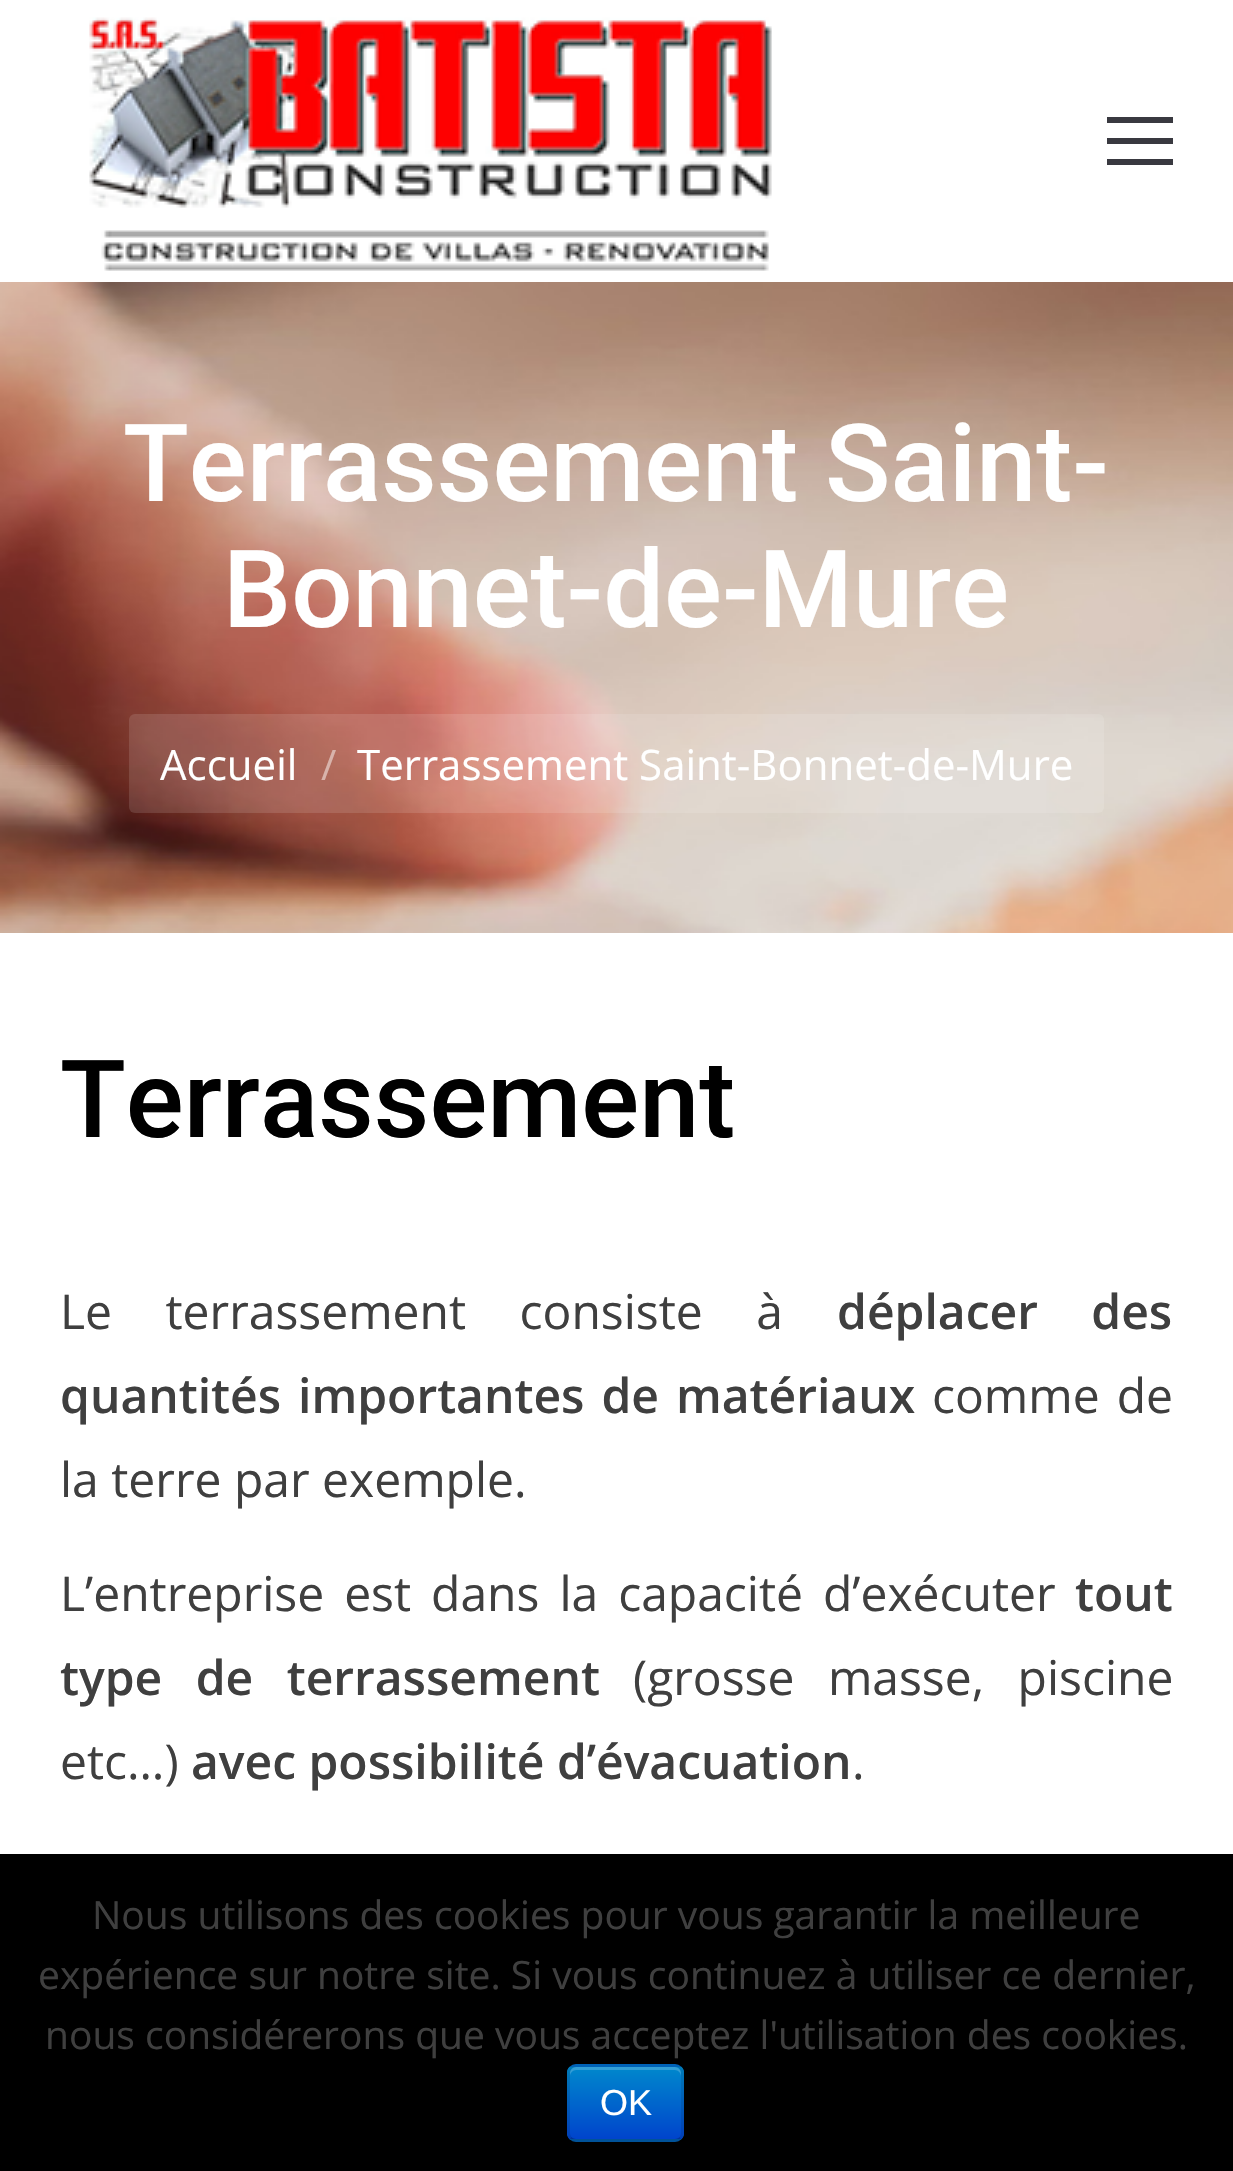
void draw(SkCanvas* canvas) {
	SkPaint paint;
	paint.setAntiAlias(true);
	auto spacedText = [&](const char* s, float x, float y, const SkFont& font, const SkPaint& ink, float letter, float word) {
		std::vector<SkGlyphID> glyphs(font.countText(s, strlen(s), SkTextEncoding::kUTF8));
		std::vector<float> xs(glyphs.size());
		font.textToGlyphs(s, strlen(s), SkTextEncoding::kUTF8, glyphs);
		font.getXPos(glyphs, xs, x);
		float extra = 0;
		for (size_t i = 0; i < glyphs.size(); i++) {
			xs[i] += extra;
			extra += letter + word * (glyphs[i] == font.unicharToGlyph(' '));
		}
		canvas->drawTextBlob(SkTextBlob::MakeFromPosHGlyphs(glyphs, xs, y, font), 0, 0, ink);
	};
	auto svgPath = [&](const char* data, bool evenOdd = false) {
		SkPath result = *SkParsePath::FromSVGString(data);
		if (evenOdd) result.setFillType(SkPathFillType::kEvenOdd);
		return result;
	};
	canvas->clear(0xffffffff);
	canvas->drawImageRect(SkImages::DeferredFromEncodedData(SkData::MakeFromFileName("img1.png")), SkRect::MakeXYWH(89, 17, 683, 254), SkSamplingOptions());
	paint.setColor(0xff393940);
	canvas->drawRect(SkRect::MakeXYWH(1107, 138, 66, 6), paint);
	canvas->drawRect(SkRect::MakeXYWH(1107, 117, 66, 6), paint);
	canvas->drawRect(SkRect::MakeXYWH(1107, 159, 66, 6), paint);
	canvas->drawImageRect(SkImages::DeferredFromEncodedData(SkData::MakeFromFileName("img2.png")), SkRect::MakeXYWH(0, 282, 1233, 651), SkSamplingOptions());
	SkFont f1(fontMgr->matchFamilyStyle("Roboto", SkFontStyle(500, SkFontStyle::kNormal_Width, SkFontStyle::kUpright_Slant)), 108);
	f1.setSubpixel(true);
	paint.setColor(0xffffffff);
	canvas->drawString("Terrassement Saint-", 123, 501, f1, paint);
	canvas->drawString("Bonnet-de-Mure", 223, 627, f1, paint);
	paint.setColor(0x1fffffff);
	canvas->drawRoundRect(SkRect::MakeXYWH(129, 714, 975, 99), 6, 6, paint);
	SkFont f2(fontMgr->matchFamilyStyle("Open Sans", SkFontStyle::Normal()), 42);
	f2.setSubpixel(true);
	paint.setColor(0xffffffff);
	canvas->drawString("Accueil", 160, 780, f2, paint);
	paint.setColor(0xffd8b3ab);
	canvas->drawString("/", 321, 780, f2, paint);
	paint.setColor(0xffffffff);
	canvas->drawString("Terrassement Saint-Bonnet-de-Mure", 357, 780, f2, paint);
	paint.setColor(0xff000000);
	canvas->drawString("Terrassement", 60, 1137, f1, paint);
	SkFont f3(fontMgr->matchFamilyStyle("Open Sans", SkFontStyle::Normal()), 48);
	f3.setSubpixel(true);
	paint.setColor(0xff3f3f3f);
	spacedText("Le terrassement consiste à", 60, 1329, f3, paint, 0, 41);
	SkFont f4(fontMgr->matchFamilyStyle("Open Sans", SkFontStyle(600, SkFontStyle::kNormal_Width, SkFontStyle::kUpright_Slant)), 48);
	f4.setSubpixel(true);
	spacedText("déplacer des", 837, 1329, f4, paint, 0, 41);
	spacedText("quantités importantes de matériaux", 60, 1413, f4, paint, 0, 4.5);
	spacedText("comme de", 932, 1413, f3, paint, 0, 4.5);
	canvas->drawString("la terre par exemple.", 60, 1497, f3, paint);
	spacedText("L’entreprise est dans la capacité d’exécuter", 60, 1611, f3, paint, 0, 7.5);
	canvas->drawString("tout", 1075, 1611, f4, paint);
	spacedText("type de terrassement", 60, 1695, f4, paint, 0, 21);
	spacedText("(grosse masse, piscine", 633, 1695, f3, paint, 0, 21);
	canvas->drawString("etc…)", 60, 1779, f3, paint);
	canvas->drawString("avec possibilité d’évacuation", 191, 1779, f4, paint);
	canvas->drawString(".", 852, 1779, f3, paint);
	paint.setColor(0xff000000);
	canvas->drawRect(SkRect::MakeXYWH(0, 1854, 1233, 317), paint);
	SkFont f5(fontMgr->matchFamilyStyle("Open Sans", SkFontStyle::Normal()), 39);
	f5.setSubpixel(true);
	paint.setColor(0xff3f3f3f);
	canvas->drawString("Nous utilisons des cookies pour vous garantir la meilleure", 92, 1929, f5, paint);
	canvas->drawString("expérience sur notre site. Si vous continuez à utiliser ce dernier,", 38, 1989, f5, paint);
	canvas->drawString("nous considérerons que vous acceptez l'utilisation des cookies.", 45, 2049, f5, paint);
	paint.setColor(0xff006dcc);
	canvas->drawRoundRect(SkRect::MakeXYWH(567, 2064, 117, 78), 9, 9, paint);
	canvas->save();
	canvas->clipPath(svgPath("M576 2064H675C680 2064 684 2068 684 2073V2133C684 2138 680 2142 675 2142H576C571 2142 567 2138 567 2133V2073C567 2068 571 2064 576 2064Z"), true);
	{
		const SkColor colors[] = {0xff0088cc, 0xff0044cc};
		const float stops[] = {0, 1};
		const SkPoint ends[] = {{626, 2067}, {626, 2139}};
		paint.setShader(SkGradientShader::MakeLinear(ends, colors, stops, 2, SkTileMode::kClamp));
		paint.setAlpha(255);
	}
	canvas->drawRect(SkRect::MakeXYWH(567, 2067, 117, 72), paint);
	canvas->restore();
	paint.setShader(nullptr);
	paint.setColor(0x33ffffff);
	canvas->drawPath(svgPath("M576 2070H675C678 2070 681 2073 681 2076V2073C681 2070 678 2067 675 2067H576C573 2067 570 2070 570 2073V2076C570 2073 573 2070 576 2070Z"), paint);
	paint.setStroke(true);
	paint.setStrokeWidth(3);
	paint.setColor(0x40000000);
	canvas->drawPath(svgPath("M680.5 2138.5C679 2139.5 677 2140.5 675 2140.5H576C574 2140.5 572 2139.5 570.5 2138.5"), paint);
	paint.setColor(0x1a000000);
	canvas->drawPath(svgPath("M570.5 2138.5C569.5 2137 568.5 2135 568.5 2133V2073C568.5 2071 569.5 2069 570.5 2067.5C572 2066.5 574 2065.5 576 2065.5H675C677 2065.5 679 2066.5 680.5 2067.5C681.5 2069 682.5 2071 682.5 2073V2133C682.5 2135 681.5 2137 680.5 2138.5"), paint);
	SkFont f6(fontMgr->matchFamilyStyle("Liberation Sans", SkFontStyle::Normal()), 36);
	f6.setSubpixel(true);
	paint.setStroke(false);
	paint.setColor(0xffffffff);
	canvas->drawString("OK", 600, 2115, f6, paint);
}
